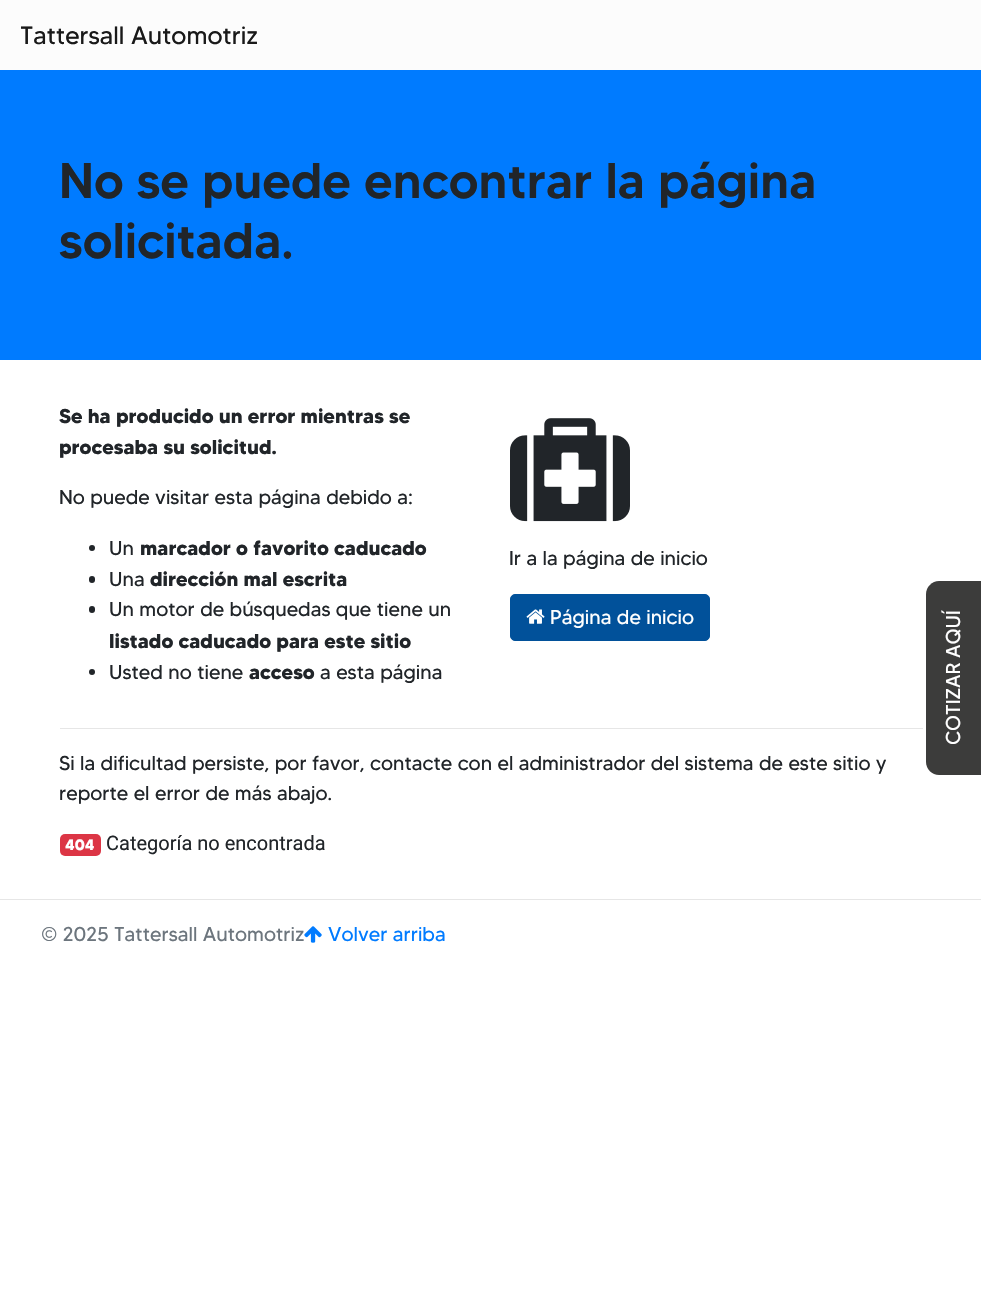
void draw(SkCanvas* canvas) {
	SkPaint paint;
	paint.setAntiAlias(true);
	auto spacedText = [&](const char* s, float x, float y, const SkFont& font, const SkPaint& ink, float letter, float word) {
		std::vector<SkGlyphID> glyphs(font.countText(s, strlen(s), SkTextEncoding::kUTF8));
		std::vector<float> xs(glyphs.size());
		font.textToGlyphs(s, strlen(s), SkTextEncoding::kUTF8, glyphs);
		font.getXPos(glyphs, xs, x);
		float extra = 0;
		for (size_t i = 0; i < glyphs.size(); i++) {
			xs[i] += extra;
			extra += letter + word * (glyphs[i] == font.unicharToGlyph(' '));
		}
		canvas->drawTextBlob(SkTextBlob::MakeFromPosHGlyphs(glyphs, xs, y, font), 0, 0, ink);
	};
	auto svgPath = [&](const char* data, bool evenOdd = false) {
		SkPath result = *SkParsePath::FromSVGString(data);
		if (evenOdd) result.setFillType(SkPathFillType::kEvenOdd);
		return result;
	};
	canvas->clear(0xffffffff);
	paint.setColor(0xfffcfcfc);
	canvas->drawRect(SkRect::MakeXYWH(0, 0, 981, 70), paint);
	SkFont f1(fontMgr->matchFamilyStyle("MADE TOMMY", SkFontStyle::Normal()), 25);
	f1.setSubpixel(true);
	paint.setColor(0xff191919);
	canvas->drawString("Tattersall Automotriz", 20, 44, f1, paint);
	paint.setColor(0xff007bff);
	canvas->drawRect(SkRect::MakeXYWH(0, 70, 981, 290), paint);
	SkFont f2(fontMgr->matchFamilyStyle("MADE TOMMY", SkFontStyle(500, SkFontStyle::kNormal_Width, SkFontStyle::kUpright_Slant)), 50);
	f2.setSubpixel(true);
	paint.setColor(0xff212529);
	canvas->drawString("No se puede encontrar la página", 59, 198, f2, paint);
	canvas->drawString("solicitada.", 59, 258, f2, paint);
	SkFont f3(fontMgr->matchFamilyStyle("MADE TOMMY", SkFontStyle::Bold()), 20);
	f3.setSubpixel(true);
	canvas->drawString("Se ha producido un error mientras se", 59, 423, f3, paint);
	canvas->drawString("procesaba su solicitud.", 59, 454, f3, paint);
	SkFont f4(fontMgr->matchFamilyStyle("MADE TOMMY", SkFontStyle::Normal()), 20);
	f4.setSubpixel(true);
	canvas->drawString("No puede visitar esta página debido a:", 59, 504, f4, paint);
	canvas->drawCircle(92, 548, 3, paint);
	canvas->drawString("Un", 109, 555, f4, paint);
	canvas->drawString("marcador o favorito caducado", 140, 555, f3, paint);
	canvas->drawRoundRect(SkRect::MakeXYWH(89, 576, 6, 7), 3, 3, paint);
	canvas->drawString("Una", 109, 586, f4, paint);
	canvas->drawString("dirección mal escrita", 150, 586, f3, paint);
	canvas->drawRoundRect(SkRect::MakeXYWH(89, 606, 6, 7), 3, 3, paint);
	canvas->drawString("Un motor de búsquedas que tiene un", 109, 616, f4, paint);
	canvas->drawString("listado caducado para este sitio", 109, 648, f3, paint);
	canvas->drawCircle(92, 672, 3, paint);
	canvas->drawString("Usted no tiene", 109, 679, f4, paint);
	canvas->drawString("acceso", 249, 679, f3, paint);
	canvas->drawString("a esta página", 320, 679, f4, paint);
	canvas->drawImageRect(SkImages::DeferredFromEncodedData(SkData::MakeFromFileName("img1.png")), SkRect::MakeXYWH(510, 418, 120, 104), SkSamplingOptions());
	canvas->drawString("Ir a la página de inicio", 509, 565, f4, paint);
	paint.setColor(0xff01519a);
	canvas->drawRoundRect(SkRect::MakeXYWH(510.5, 594.5, 199, 46), 4.5, 4.5, paint);
	paint.setStroke(true);
	paint.setStrokeWidth(1);
	canvas->drawRoundRect(SkRect::MakeXYWH(510.5, 594.5, 199, 46), 4.5, 4.5, paint);
	canvas->drawImageRect(SkImages::DeferredFromEncodedData(SkData::MakeFromFileName("img2.png")), SkRect::MakeXYWH(526, 609, 19, 15), SkSamplingOptions());
	paint.setStroke(false);
	paint.setColor(0xffffffff);
	canvas->drawString("Página de inicio", 550, 624, f4, paint);
	paint.setColor(0xffe6e6e6);
	canvas->drawRect(SkRect::MakeXYWH(60, 728, 863, 1), paint);
	paint.setColor(0xff212529);
	canvas->drawString("Si la dificultad persiste, por favor, contacte con el administrador del sistema de este sitio y", 59, 770, f4, paint);
	canvas->drawString("reporte el error de más abajo.", 59, 800, f4, paint);
	paint.setColor(0xffdc3545);
	canvas->drawRoundRect(SkRect::MakeXYWH(60, 834, 41, 22), 5, 5, paint);
	SkFont f5(fontMgr->matchFamilyStyle("MADE TOMMY", SkFontStyle::Bold()), 15);
	f5.setSubpixel(true);
	paint.setColor(0xffffffff);
	canvas->drawString("404", 65, 850, f5, paint);
	SkFont f6(fontMgr->matchFamilyStyle("Roboto", SkFontStyle::Normal()), 20);
	f6.setSubpixel(true);
	paint.setColor(0xff212529);
	canvas->drawString("Categoría no encontrada", 106, 850, f6, paint);
	paint.setColor(0xff3c3c3b);
	canvas->drawPath(svgPath("M981 775H939C932 775 926 769 926 762V594C926 587 932 581 939 581H981Z"), paint);
	paint.setColor(0xffffffff);
	canvas->save();
	canvas->rotate(-90, 960, 745);
	spacedText("COTIZAR AQUÍ", 960, 745, f4, paint, 0, -1);
	canvas->restore();
	paint.setColor(0xffe6e6e6);
	canvas->drawRect(SkRect::MakeXYWH(0, 899, 981, 1), paint);
	paint.setColor(0xff6c757d);
	canvas->drawString("© 2025 Tattersall Automotriz", 41, 941, f4, paint);
	canvas->drawImageRect(SkImages::DeferredFromEncodedData(SkData::MakeFromFileName("img3.png")), SkRect::MakeXYWH(304, 926, 18, 17), SkSamplingOptions());
	paint.setColor(0xff007bff);
	canvas->drawString("Volver arriba", 328, 941, f4, paint);
}
